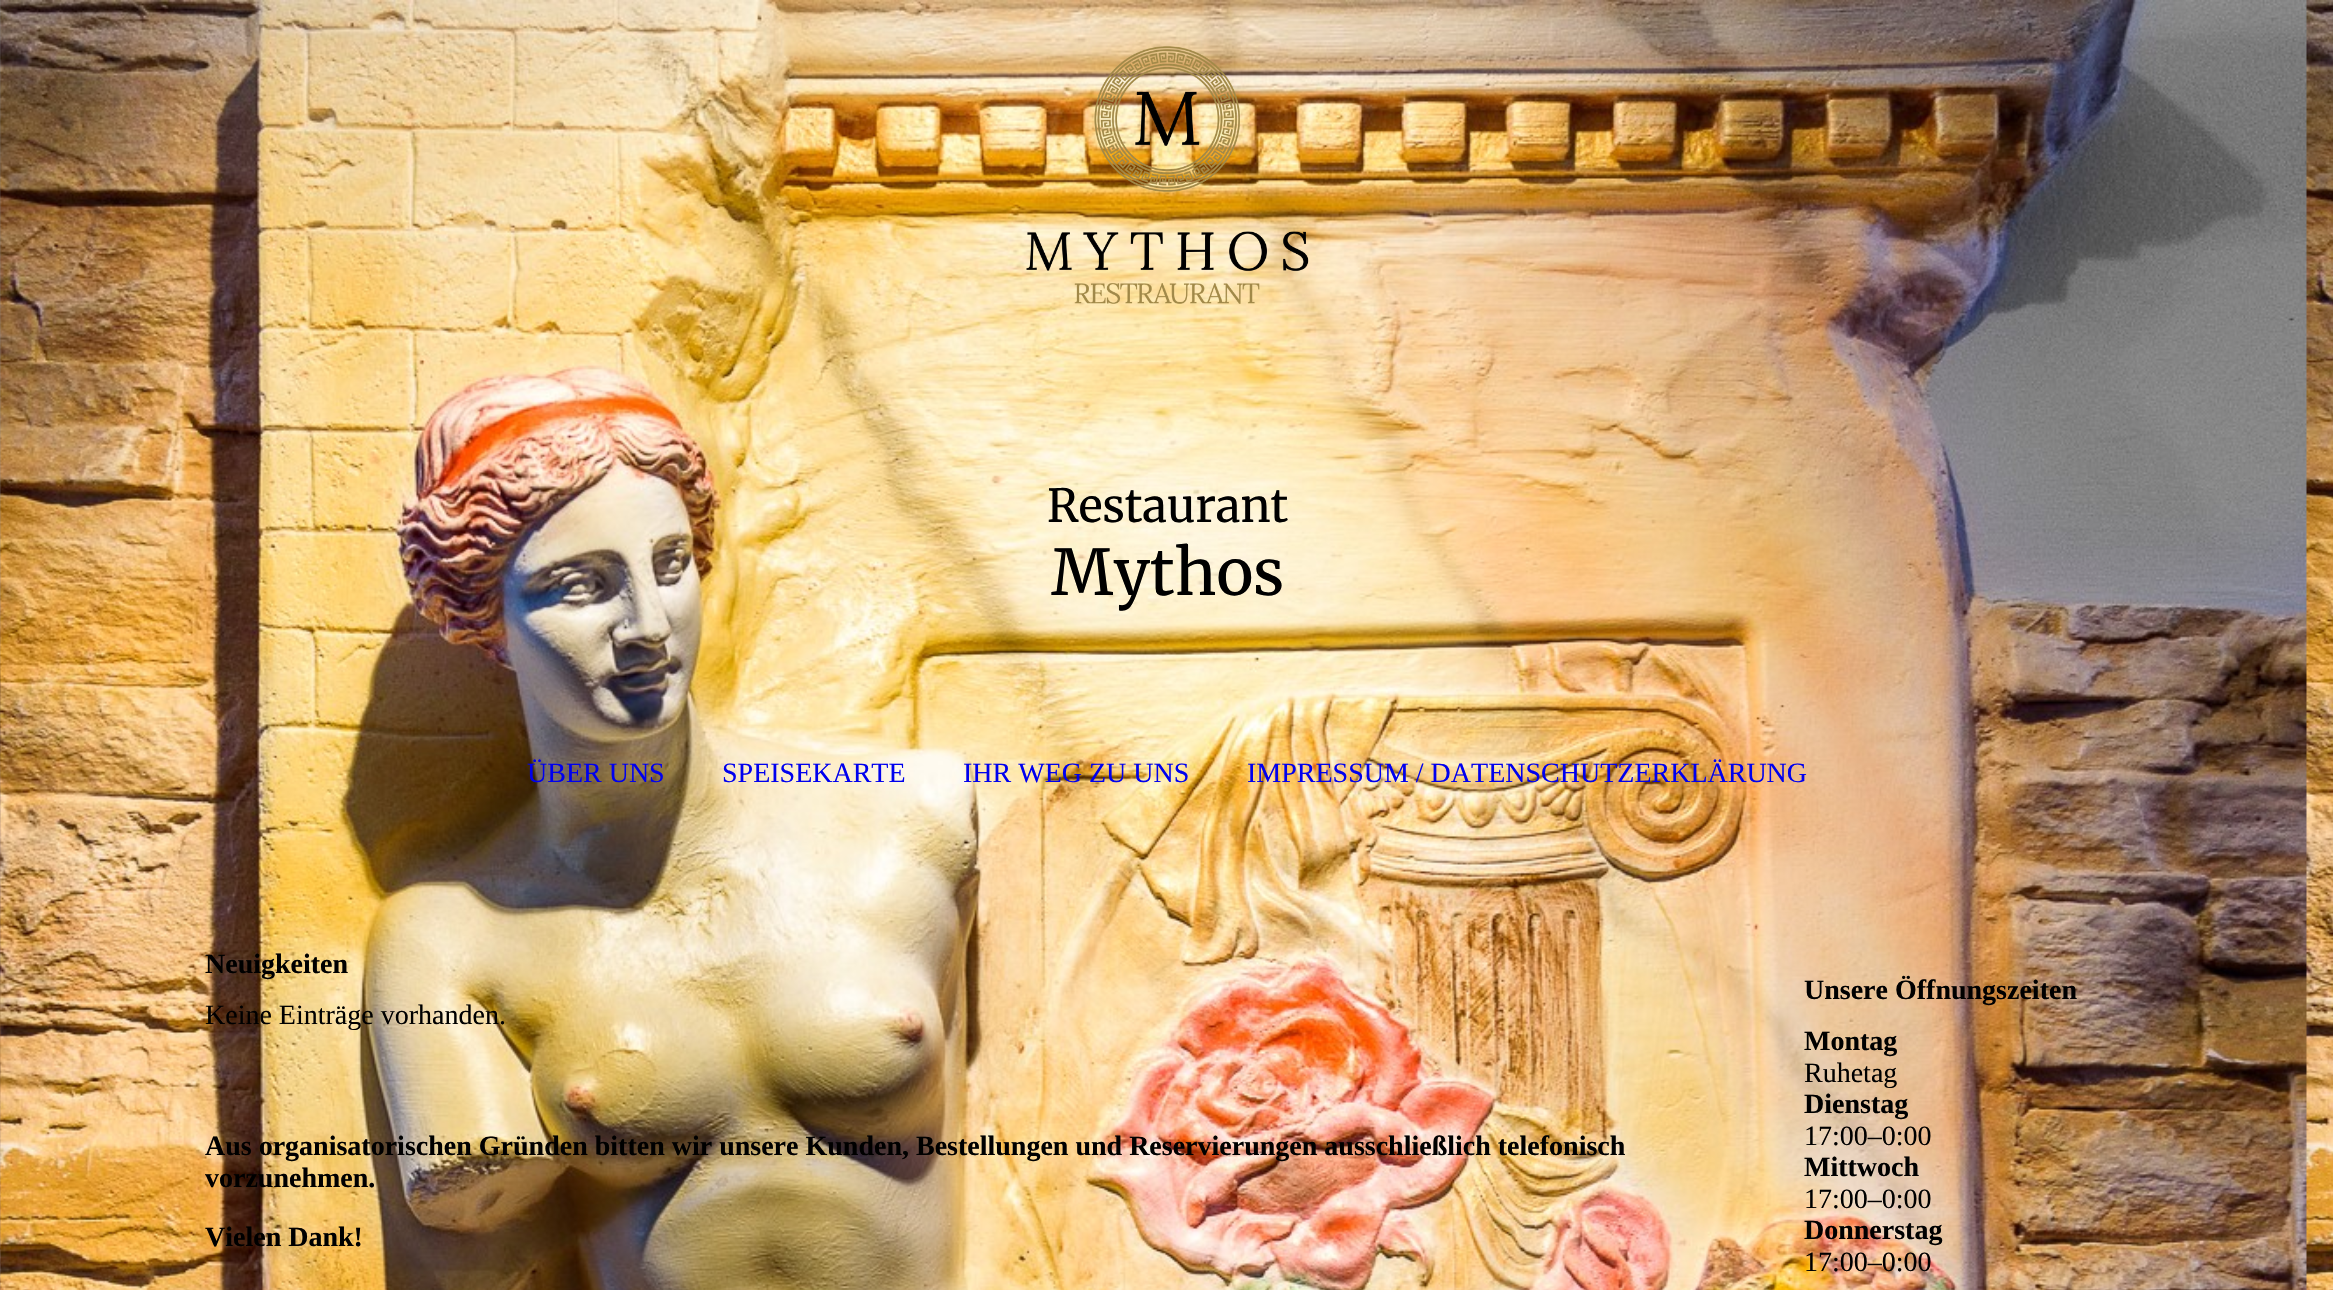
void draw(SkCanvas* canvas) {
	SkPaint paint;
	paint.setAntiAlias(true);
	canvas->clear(0xffffffff);
	canvas->drawImageRect(SkImages::DeferredFromEncodedData(SkData::MakeFromFileName("img1.png")), SkRect::MakeXYWH(0, 0, 2333, 1290), SkSamplingOptions());
	canvas->drawImageRect(SkImages::DeferredFromEncodedData(SkData::MakeFromFileName("img2.png")), SkRect::MakeXYWH(1026, 46, 283, 258), SkSamplingOptions());
	SkFont f1(fontMgr->matchFamilyStyle("Merriweather", SkFontStyle::Normal()), 45.5);
	f1.setSubpixel(true);
	paint.setColor(0xff000000);
	canvas->drawString("Restaurant", 1047, 522, f1, paint);
	SkFont f2(fontMgr->matchFamilyStyle("Merriweather", SkFontStyle::Normal()), 63);
	f2.setSubpixel(true);
	canvas->drawString("Mythos", 1051, 595, f2, paint);
	SkFont f3(fontMgr->matchFamilyStyle("Liberation Serif", SkFontStyle::Normal()), 28);
	f3.setSubpixel(true);
	paint.setColor(0xff0000ee);
	canvas->drawString("ÜBER UNS", 527, 782, f3, paint);
	canvas->drawString("SPEISEKARTE", 722, 782, f3, paint);
	canvas->drawString("IHR WEG ZU UNS", 963, 782, f3, paint);
	canvas->drawString("IMPRESSUM / DATENSCHUTZERKLÄRUNG", 1247, 782, f3, paint);
	SkFont f4(fontMgr->matchFamilyStyle("Liberation Serif", SkFontStyle::Bold()), 28);
	f4.setSubpixel(true);
	paint.setColor(0xff000000);
	canvas->drawString("Neuigkeiten", 205, 973, f4, paint);
	canvas->drawString("Keine Einträge vorhanden.", 205, 1024, f3, paint);
	canvas->drawString("Aus organisatorischen Gründen bitten wir unsere Kunden, Bestellungen und Reservierungen ausschließlich telefonisch", 205, 1155, f4, paint);
	canvas->drawString("vorzunehmen.", 205, 1187, f4, paint);
	canvas->drawString("Vielen Dank!", 205, 1246, f4, paint);
	canvas->drawString("Unsere Öffnungszeiten", 1804, 999, f4, paint);
	canvas->drawString("Montag", 1804, 1050, f4, paint);
	canvas->drawString("Ruhetag", 1804, 1082, f3, paint);
	canvas->drawString("Dienstag", 1804, 1113, f4, paint);
	canvas->drawString("17:00–0:00", 1804, 1145, f3, paint);
	canvas->drawString("Mittwoch", 1804, 1176, f4, paint);
	canvas->drawString("17:00–0:00", 1804, 1208, f3, paint);
	canvas->drawString("Donnerstag", 1804, 1239, f4, paint);
	canvas->drawString("17:00–0:00", 1804, 1271, f3, paint);
}
